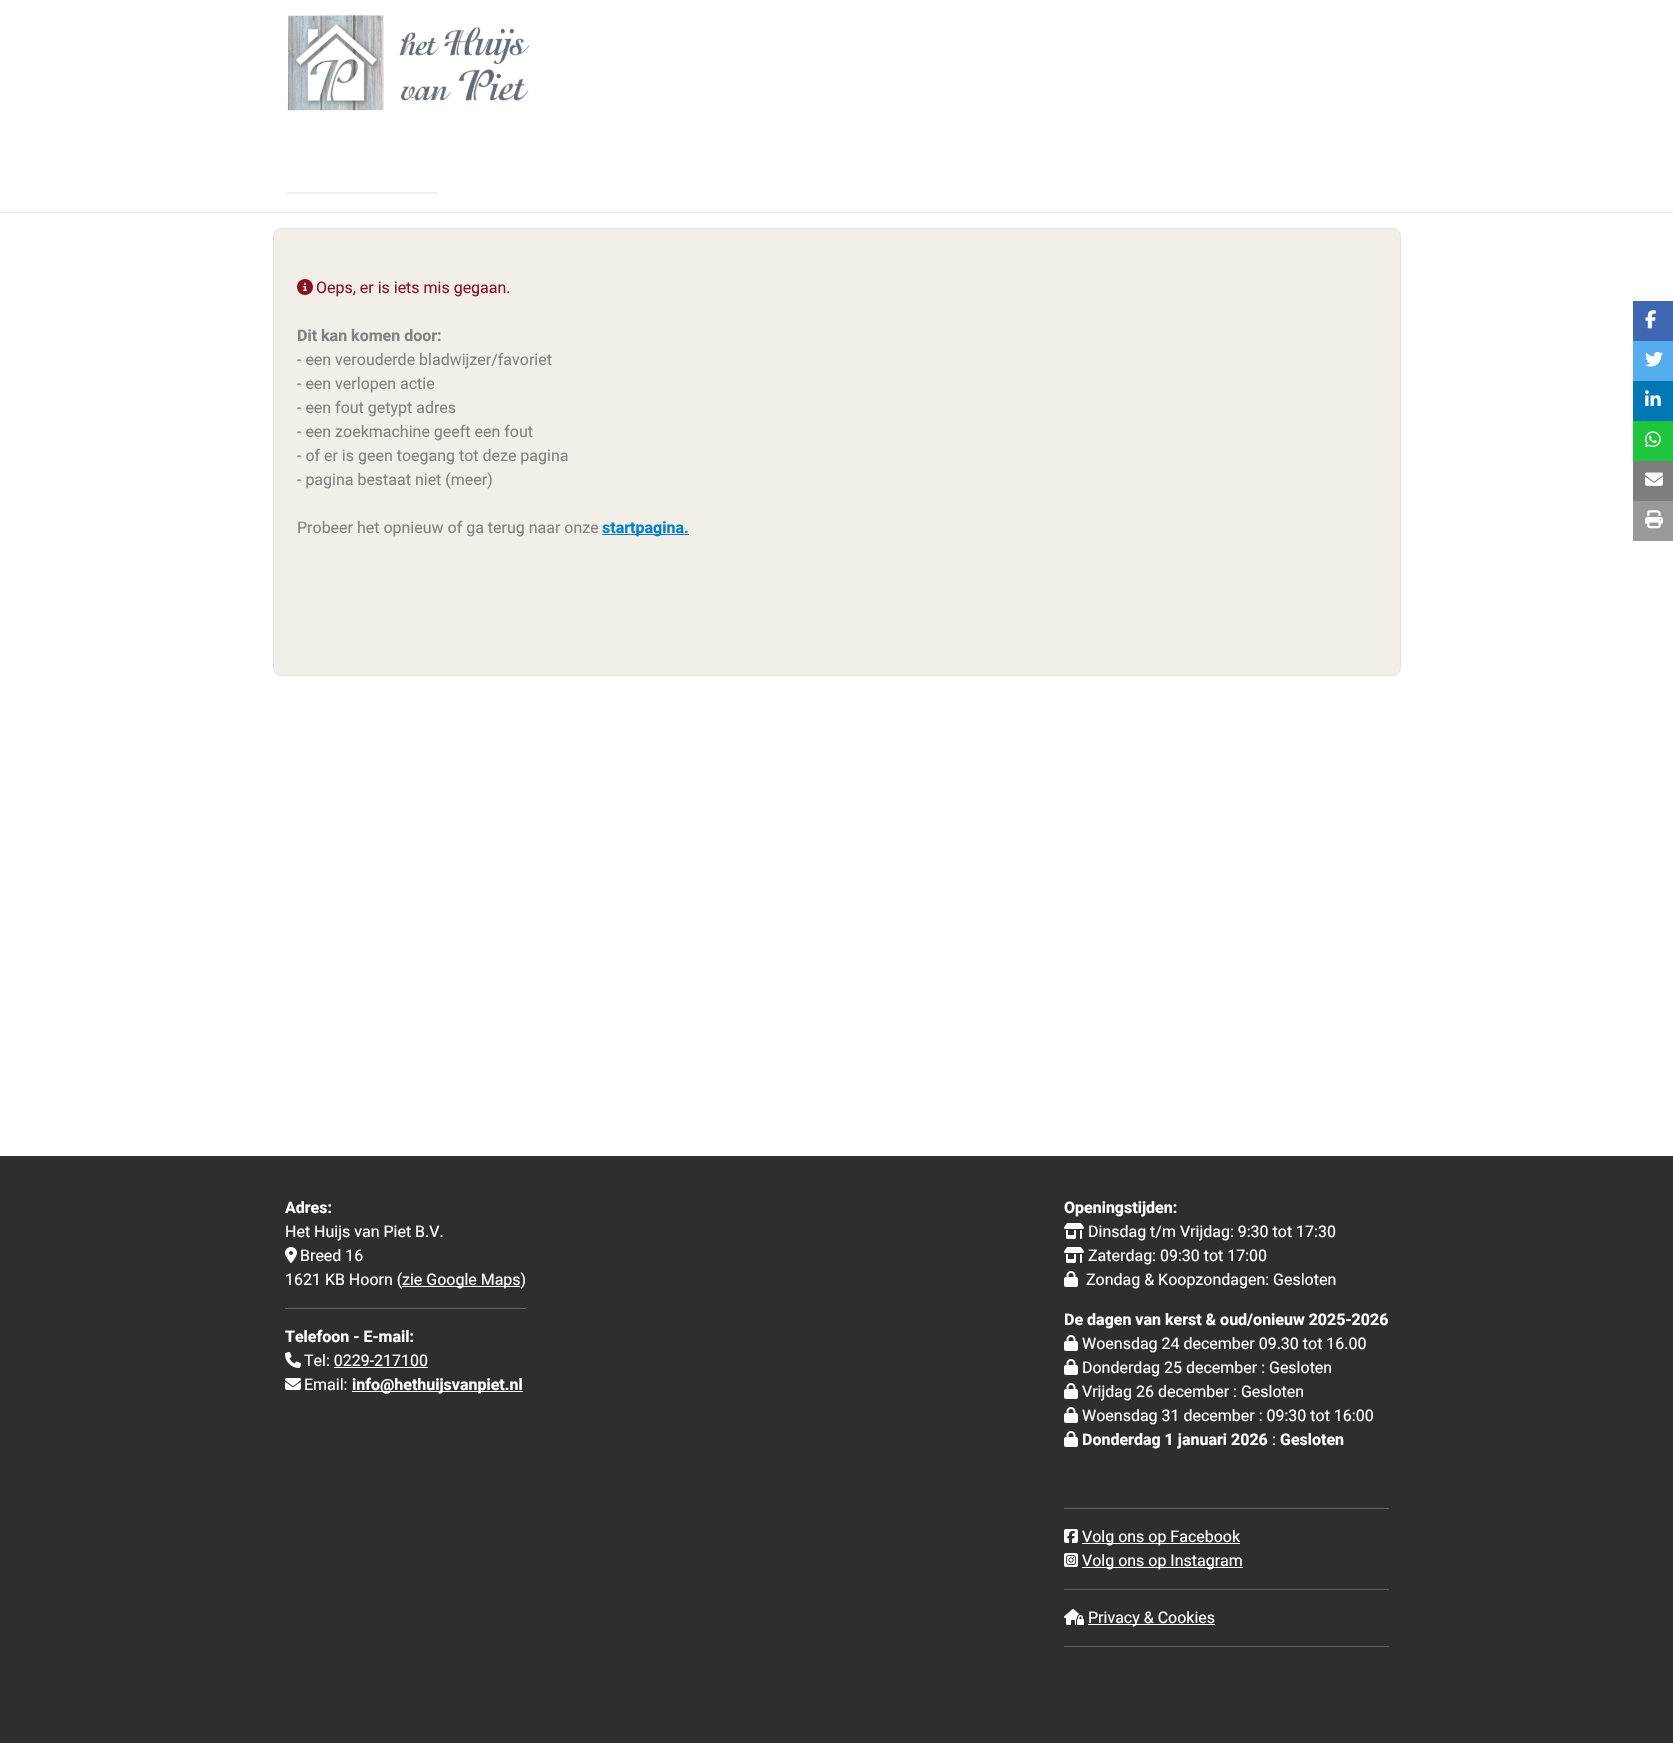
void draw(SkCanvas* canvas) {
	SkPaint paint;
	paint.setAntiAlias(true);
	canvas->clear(0xffffffff);
	paint.setColor(0xffeaeaea);
	canvas->drawRect(SkRect::MakeXYWH(0, 212, 1673, 1), paint);
	canvas->drawImageRect(SkImages::DeferredFromEncodedData(SkData::MakeFromFileName("img1.png")), SkRect::MakeXYWH(287, 14, 243, 97), SkSamplingOptions());
	paint.setColor(0xfff2efe8);
	canvas->drawRect(SkRect::MakeXYWH(287, 192, 150, 2), paint);
	paint.setColor(0xff4267b2);
	canvas->drawRect(SkRect::MakeXYWH(1633, 301, 40, 40), paint);
	canvas->drawImageRect(SkImages::DeferredFromEncodedData(SkData::MakeFromFileName("img2.png")), SkRect::MakeXYWH(1645, 310, 11, 19), SkSamplingOptions());
	paint.setColor(0xff55acee);
	canvas->drawRect(SkRect::MakeXYWH(1633, 341, 40, 40), paint);
	canvas->drawImageRect(SkImages::DeferredFromEncodedData(SkData::MakeFromFileName("img3.png")), SkRect::MakeXYWH(1645, 352, 18, 15), SkSamplingOptions());
	paint.setColor(0xff0077b5);
	canvas->drawRect(SkRect::MakeXYWH(1633, 381, 40, 40), paint);
	canvas->drawImageRect(SkImages::DeferredFromEncodedData(SkData::MakeFromFileName("img4.png")), SkRect::MakeXYWH(1645, 390, 16, 16), SkSamplingOptions());
	paint.setColor(0xff1ec53f);
	canvas->drawRect(SkRect::MakeXYWH(1633, 421, 40, 40), paint);
	canvas->drawImageRect(SkImages::DeferredFromEncodedData(SkData::MakeFromFileName("img5.png")), SkRect::MakeXYWH(1645, 431, 16, 17), SkSamplingOptions());
	paint.setColor(0xff7d7d7d);
	canvas->drawRect(SkRect::MakeXYWH(1633, 461, 40, 40), paint);
	canvas->drawImageRect(SkImages::DeferredFromEncodedData(SkData::MakeFromFileName("img6.png")), SkRect::MakeXYWH(1645, 472, 18, 14), SkSamplingOptions());
	paint.setColor(0xff999999);
	canvas->drawRect(SkRect::MakeXYWH(1633, 501, 40, 40), paint);
	canvas->drawImageRect(SkImages::DeferredFromEncodedData(SkData::MakeFromFileName("img7.png")), SkRect::MakeXYWH(1645, 510, 18, 19), SkSamplingOptions());
	paint.setColor(0xfff2efe8);
	canvas->drawRoundRect(SkRect::MakeXYWH(273.5, 228.5, 1127, 447), 7.5, 7.5, paint);
	paint.setStroke(true);
	paint.setStrokeWidth(1);
	paint.setColor(0xffdfe3e7);
	canvas->drawRoundRect(SkRect::MakeXYWH(273.5, 228.5, 1127, 447), 7.5, 7.5, paint);
	canvas->drawImageRect(SkImages::DeferredFromEncodedData(SkData::MakeFromFileName("img8.png")), SkRect::MakeXYWH(297, 279, 16, 16), SkSamplingOptions());
	SkFont f1(fontMgr->matchFamilyStyle("Roboto", SkFontStyle::Normal()), 16);
	f1.setSubpixel(true);
	paint.setStroke(false);
	paint.setColor(0xff8b1122);
	canvas->drawString("Oeps, er is iets mis gegaan.", 316, 293, f1, paint);
	SkFont f2(fontMgr->matchFamilyStyle("Roboto", SkFontStyle::Bold()), 16);
	f2.setSubpixel(true);
	paint.setColor(0xff828282);
	canvas->drawString("Dit kan komen door:", 297, 341, f2, paint);
	canvas->drawString("- een verouderde bladwijzer/favoriet", 297, 365, f1, paint);
	canvas->drawString("- een verlopen actie", 297, 389, f1, paint);
	canvas->drawString("- een fout getypt adres", 297, 413, f1, paint);
	canvas->drawString("- een zoekmachine geeft een fout", 297, 437, f1, paint);
	canvas->drawString("- of er is geen toegang tot deze pagina", 297, 461, f1, paint);
	canvas->drawString("- pagina bestaat niet (meer)", 297, 485, f1, paint);
	canvas->drawString("Probeer het opnieuw of ga terug naar onze", 297, 533, f1, paint);
	paint.setColor(0xff0080cc);
	canvas->drawRect(SkRect::MakeXYWH(602, 534, 87, 1), paint);
	canvas->drawString("startpagina.", 602, 533, f2, paint);
	paint.setColor(0xff2e2e2e);
	canvas->drawRect(SkRect::MakeXYWH(0, 1156, 1673, 587), paint);
	paint.setColor(0xffffffff);
	canvas->drawString("Adres:", 285, 1213, f2, paint);
	canvas->drawString("Het Huijs van Piet B.V.", 285, 1237, f1, paint);
	canvas->drawImageRect(SkImages::DeferredFromEncodedData(SkData::MakeFromFileName("img9.png")), SkRect::MakeXYWH(285, 1247, 12, 16), SkSamplingOptions());
	canvas->drawString("Breed 16", 300, 1261, f1, paint);
	canvas->drawString("1621 KB Hoorn (", 285, 1285, f1, paint);
	canvas->drawRect(SkRect::MakeXYWH(402, 1286, 118, 1), paint);
	canvas->drawString("zie Google Maps)", 402, 1285, f1, paint);
	paint.setColor(0xff626262);
	canvas->drawRect(SkRect::MakeXYWH(285, 1308, 241, 1), paint);
	paint.setColor(0xffffffff);
	canvas->drawString("Telefoon - E-mail:", 285, 1342, f2, paint);
	canvas->drawImageRect(SkImages::DeferredFromEncodedData(SkData::MakeFromFileName("img10.png")), SkRect::MakeXYWH(285, 1352, 16, 16), SkSamplingOptions());
	canvas->drawString("Tel: 0229-217100", 304, 1366, f1, paint);
	canvas->drawRect(SkRect::MakeXYWH(334, 1367, 94, 1), paint);
	canvas->drawImageRect(SkImages::DeferredFromEncodedData(SkData::MakeFromFileName("img11.png")), SkRect::MakeXYWH(285, 1378, 16, 12), SkSamplingOptions());
	canvas->drawString("Email:", 304, 1390, f1, paint);
	canvas->drawRect(SkRect::MakeXYWH(352, 1391, 171, 1), paint);
	canvas->drawString("info@hethuijsvanpiet.nl", 352, 1390, f2, paint);
	canvas->drawString("Openingstijden:", 1064, 1213, f2, paint);
	canvas->drawImageRect(SkImages::DeferredFromEncodedData(SkData::MakeFromFileName("img12.png")), SkRect::MakeXYWH(1064, 1223, 20, 16), SkSamplingOptions());
	canvas->drawString("Dinsdag t/m Vrijdag: 9:30 tot 17:30", 1088, 1237, f1, paint);
	canvas->drawImageRect(SkImages::DeferredFromEncodedData(SkData::MakeFromFileName("img12.png")), SkRect::MakeXYWH(1064, 1247, 20, 16), SkSamplingOptions());
	canvas->drawString("Zaterdag: 09:30 tot 17:00", 1088, 1261, f1, paint);
	canvas->drawImageRect(SkImages::DeferredFromEncodedData(SkData::MakeFromFileName("img13.png")), SkRect::MakeXYWH(1064, 1271, 14, 16), SkSamplingOptions());
	canvas->drawString("Zondag & Koopzondagen: Gesloten", 1086, 1285, f1, paint);
	canvas->drawString("De dagen van kerst & oud/onieuw 2025-2026", 1064, 1325, f2, paint);
	canvas->drawImageRect(SkImages::DeferredFromEncodedData(SkData::MakeFromFileName("img13.png")), SkRect::MakeXYWH(1064, 1335, 14, 16), SkSamplingOptions());
	canvas->drawString("Woensdag 24 december 09.30 tot 16.00", 1082, 1349, f1, paint);
	canvas->drawImageRect(SkImages::DeferredFromEncodedData(SkData::MakeFromFileName("img13.png")), SkRect::MakeXYWH(1064, 1359, 14, 16), SkSamplingOptions());
	canvas->drawString("Donderdag 25 december : Gesloten", 1082, 1373, f1, paint);
	canvas->drawImageRect(SkImages::DeferredFromEncodedData(SkData::MakeFromFileName("img13.png")), SkRect::MakeXYWH(1064, 1383, 14, 16), SkSamplingOptions());
	canvas->drawString("Vrijdag 26 december : Gesloten", 1082, 1397, f1, paint);
	canvas->drawImageRect(SkImages::DeferredFromEncodedData(SkData::MakeFromFileName("img13.png")), SkRect::MakeXYWH(1064, 1407, 14, 16), SkSamplingOptions());
	canvas->drawString("Woensdag 31 december : 09:30 tot 16:00", 1082, 1421, f1, paint);
	canvas->drawImageRect(SkImages::DeferredFromEncodedData(SkData::MakeFromFileName("img13.png")), SkRect::MakeXYWH(1064, 1431, 14, 16), SkSamplingOptions());
	canvas->drawString("Donderdag 1 januari 2026", 1082, 1445, f2, paint);
	canvas->drawString(":", 1272, 1445, f1, paint);
	canvas->drawString("Gesloten", 1280, 1445, f2, paint);
	paint.setColor(0xff626262);
	canvas->drawRect(SkRect::MakeXYWH(1064, 1508, 325, 1), paint);
	canvas->drawImageRect(SkImages::DeferredFromEncodedData(SkData::MakeFromFileName("img14.png")), SkRect::MakeXYWH(1064, 1529, 14, 14), SkSamplingOptions());
	paint.setColor(0xffffffff);
	canvas->drawRect(SkRect::MakeXYWH(1082, 1543, 158, 1), paint);
	canvas->drawString("Volg ons op Facebook", 1082, 1542, f1, paint);
	canvas->drawImageRect(SkImages::DeferredFromEncodedData(SkData::MakeFromFileName("img15.png")), SkRect::MakeXYWH(1064, 1553, 14, 14), SkSamplingOptions());
	canvas->drawRect(SkRect::MakeXYWH(1082, 1567, 161, 1), paint);
	canvas->drawString("Volg ons op Instagram", 1082, 1566, f1, paint);
	paint.setColor(0xff626262);
	canvas->drawRect(SkRect::MakeXYWH(1064, 1589, 325, 1), paint);
	canvas->drawImageRect(SkImages::DeferredFromEncodedData(SkData::MakeFromFileName("img16.png")), SkRect::MakeXYWH(1064, 1609, 20, 16), SkSamplingOptions());
	paint.setColor(0xffffffff);
	canvas->drawRect(SkRect::MakeXYWH(1088, 1624, 127, 1), paint);
	canvas->drawString("Privacy & Cookies", 1088, 1623, f1, paint);
	paint.setColor(0xff626262);
	canvas->drawRect(SkRect::MakeXYWH(1064, 1646, 325, 1), paint);
}
